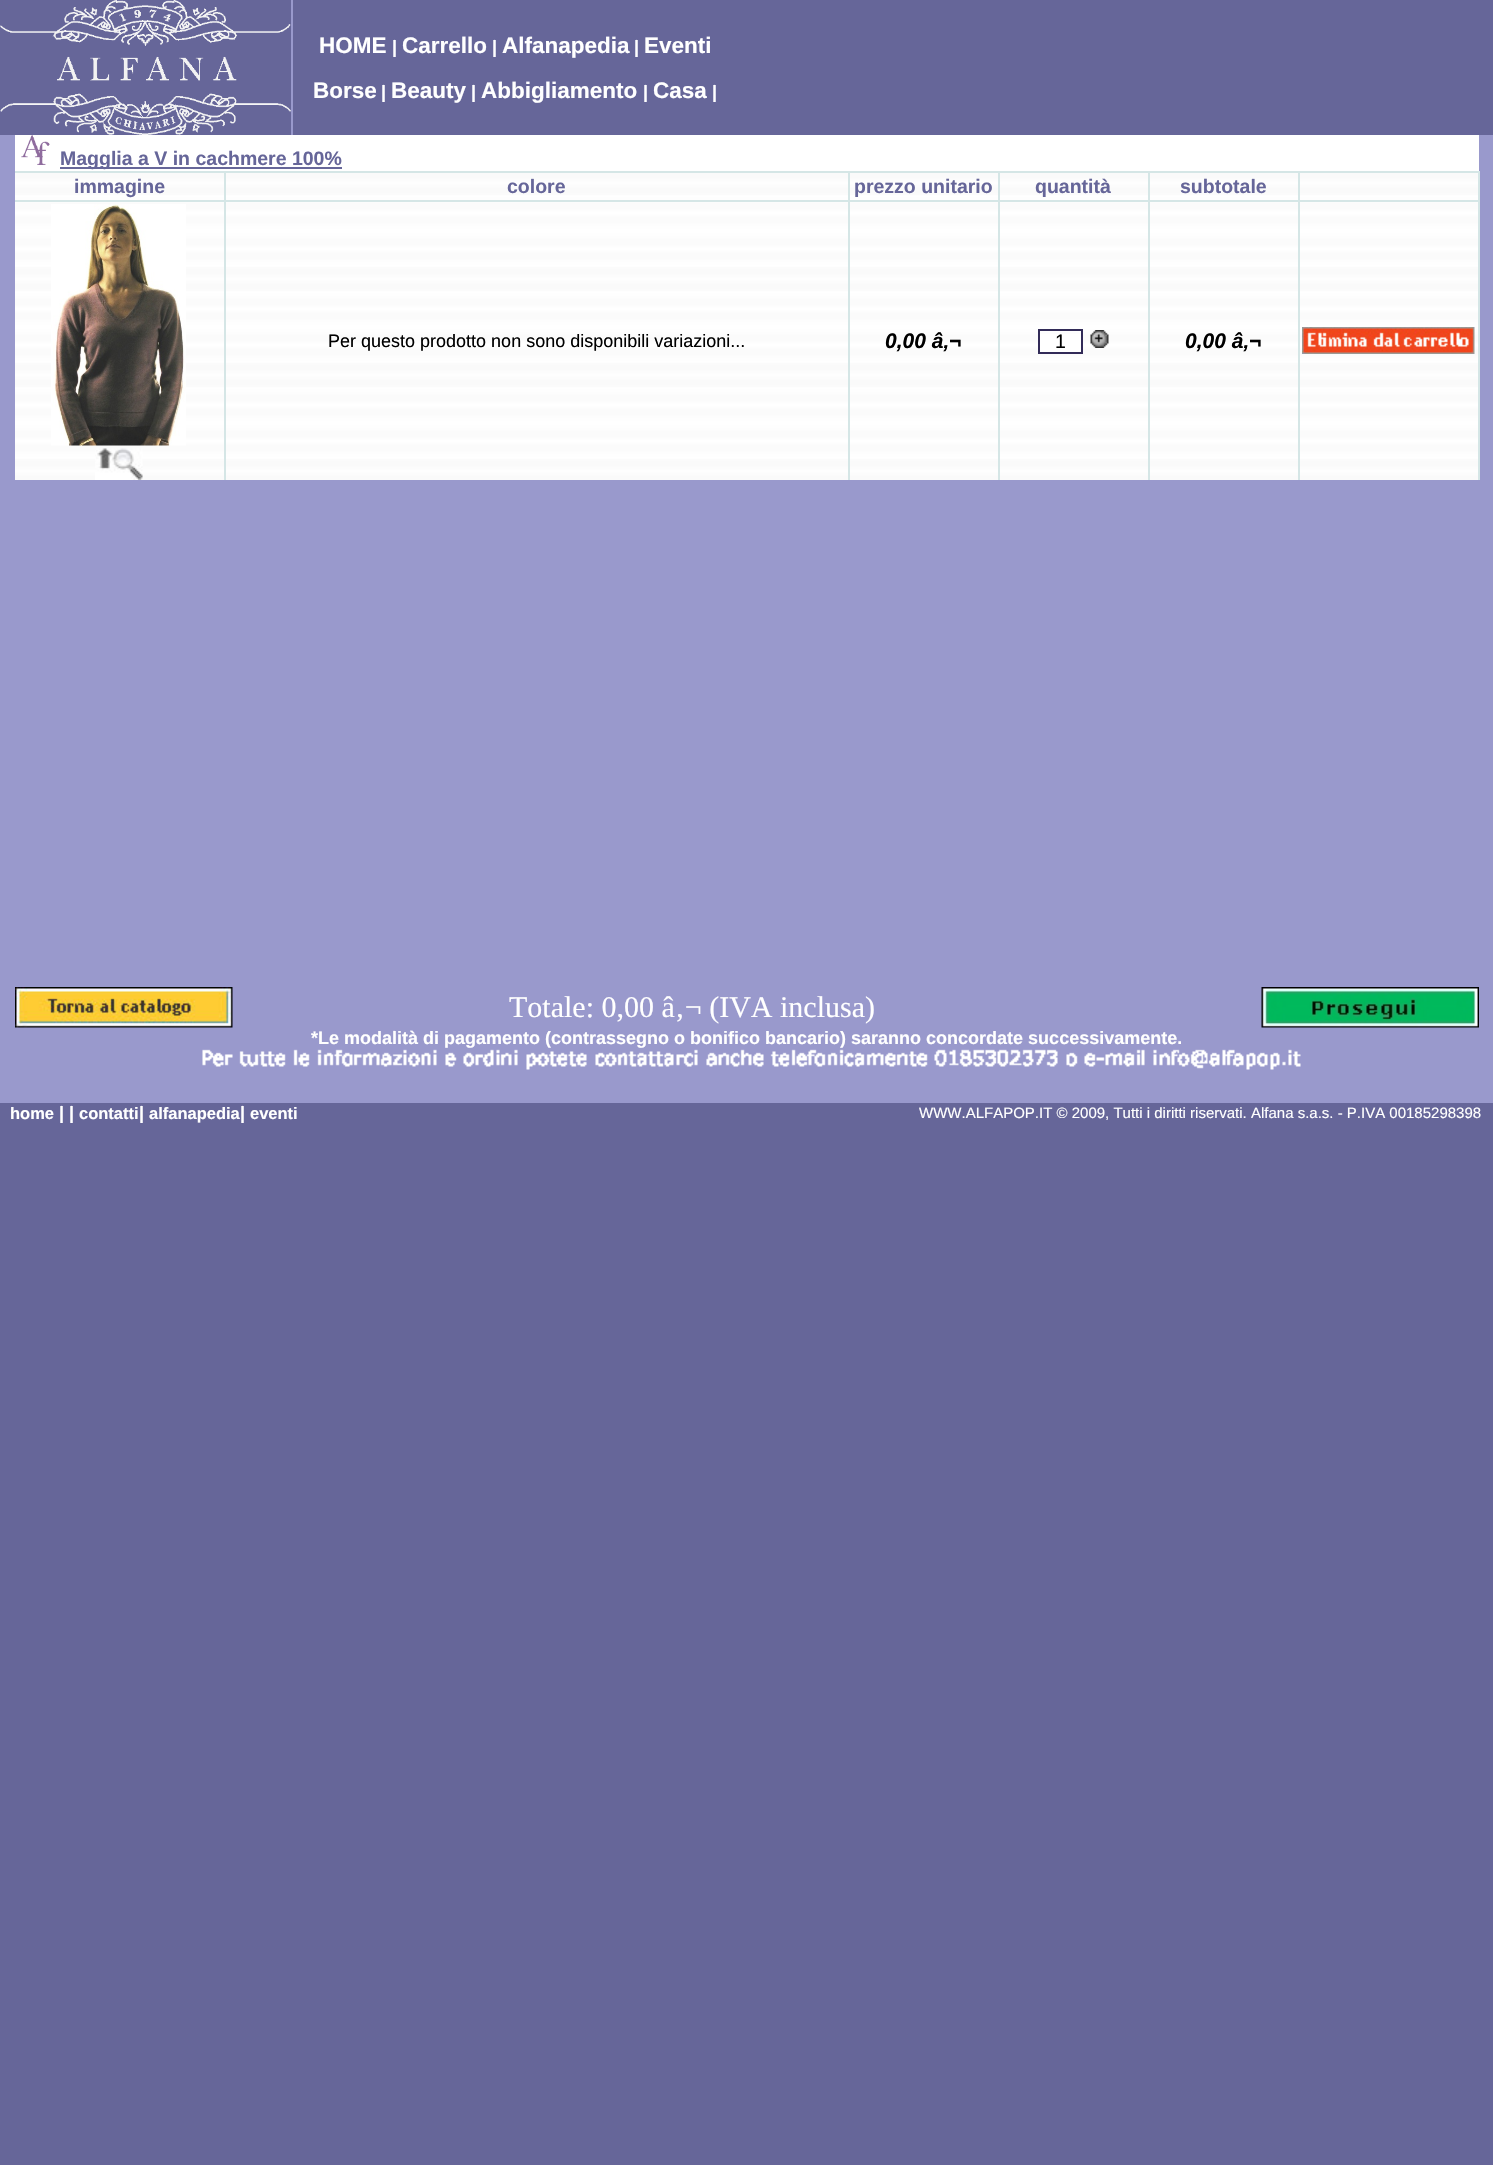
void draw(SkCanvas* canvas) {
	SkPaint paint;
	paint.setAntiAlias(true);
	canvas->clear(0xff666699);
	canvas->drawImageRect(SkImages::DeferredFromEncodedData(SkData::MakeFromFileName("img1.png")), SkRect::MakeXYWH(0, 0, 291, 135), SkSamplingOptions());
	paint.setColor(0xff9999cc);
	canvas->drawRect(SkRect::MakeXYWH(291, 0, 2, 135), paint);
	SkFont f1(fontMgr->matchFamilyStyle("Liberation Sans", SkFontStyle::Bold()), 22.5);
	f1.setSubpixel(true);
	paint.setColor(0xffffffff);
	canvas->drawString("HOME", 319, 53, f1, paint);
	SkFont f2(fontMgr->matchFamilyStyle("Liberation Sans", SkFontStyle::Bold()), 18);
	f2.setSubpixel(true);
	canvas->drawString("|", 392, 53, f2, paint);
	canvas->drawString("Carrello", 402, 53, f1, paint);
	canvas->drawString("|", 492, 53, f2, paint);
	canvas->drawString("Alfanapedia", 502, 53, f1, paint);
	canvas->drawString("|", 634, 53, f2, paint);
	canvas->drawString("Eventi", 644, 53, f1, paint);
	canvas->drawString("Borse", 313, 98, f1, paint);
	canvas->drawString("|", 381, 98, f2, paint);
	canvas->drawString("Beauty", 391, 98, f1, paint);
	canvas->drawString("|", 471, 98, f2, paint);
	canvas->drawString("Abbigliamento", 481, 98, f1, paint);
	canvas->drawString("|", 643, 98, f2, paint);
	canvas->drawString("Casa", 653, 98, f1, paint);
	canvas->drawString("|", 712, 98, f2, paint);
	paint.setColor(0xff9999cc);
	canvas->drawRect(SkRect::MakeXYWH(0, 135, 1493, 968), paint);
	paint.setColor(0xffffffff);
	canvas->drawRect(SkRect::MakeXYWH(15, 135, 1464, 36), paint);
	canvas->drawImageRect(SkImages::DeferredFromEncodedData(SkData::MakeFromFileName("img2.png")), SkRect::MakeXYWH(15, 173, 1463, 307), SkSamplingOptions());
	canvas->drawImageRect(SkImages::DeferredFromEncodedData(SkData::MakeFromFileName("img3.png")), SkRect::MakeXYWH(21, 135, 29, 30), SkSamplingOptions());
	paint.setColor(0xff666699);
	canvas->drawRect(SkRect::MakeXYWH(60, 167, 282, 2), paint);
	SkFont f3(fontMgr->matchFamilyStyle("Liberation Sans", SkFontStyle::Bold()), 19.5);
	f3.setSubpixel(true);
	canvas->drawString("Magglia a V in cachmere 100%", 60, 165, f3, paint);
	paint.setColor(0xffd5e6e6);
	canvas->drawRect(SkRect::MakeXYWH(15, 171, 210, 2), paint);
	canvas->drawRect(SkRect::MakeXYWH(224, 171, 2, 29), paint);
	paint.setColor(0xff666699);
	canvas->drawString("immagine", 74, 193, f3, paint);
	paint.setColor(0xffd5e6e6);
	canvas->drawRect(SkRect::MakeXYWH(225, 171, 624, 2), paint);
	canvas->drawRect(SkRect::MakeXYWH(848, 171, 2, 29), paint);
	paint.setColor(0xff666699);
	canvas->drawString("colore", 507, 193, f3, paint);
	paint.setColor(0xffd5e6e6);
	canvas->drawRect(SkRect::MakeXYWH(849, 171, 150, 2), paint);
	canvas->drawRect(SkRect::MakeXYWH(998, 171, 2, 29), paint);
	paint.setColor(0xff666699);
	canvas->drawString("prezzo unitario", 854, 193, f3, paint);
	paint.setColor(0xffd5e6e6);
	canvas->drawRect(SkRect::MakeXYWH(999, 171, 150, 2), paint);
	canvas->drawRect(SkRect::MakeXYWH(1148, 171, 2, 29), paint);
	paint.setColor(0xff666699);
	canvas->drawString("quantità", 1035, 193, f3, paint);
	paint.setColor(0xffd5e6e6);
	canvas->drawRect(SkRect::MakeXYWH(1149, 171, 150, 2), paint);
	canvas->drawRect(SkRect::MakeXYWH(1298, 171, 2, 29), paint);
	paint.setColor(0xff666699);
	canvas->drawString("subtotale", 1180, 193, f3, paint);
	paint.setColor(0xffd5e6e6);
	canvas->drawRect(SkRect::MakeXYWH(1299, 171, 180, 2), paint);
	canvas->drawRect(SkRect::MakeXYWH(1478, 171, 2, 29), paint);
	canvas->drawRect(SkRect::MakeXYWH(15, 200, 210, 2), paint);
	canvas->drawRect(SkRect::MakeXYWH(224, 200, 2, 280), paint);
	canvas->drawImageRect(SkImages::DeferredFromEncodedData(SkData::MakeFromFileName("img4.png")), SkRect::MakeXYWH(51, 204, 135, 242), SkSamplingOptions());
	canvas->drawImageRect(SkImages::DeferredFromEncodedData(SkData::MakeFromFileName("img5.png")), SkRect::MakeXYWH(95, 448, 48, 32), SkSamplingOptions());
	canvas->drawRect(SkRect::MakeXYWH(225, 200, 624, 2), paint);
	canvas->drawRect(SkRect::MakeXYWH(848, 200, 2, 280), paint);
	SkFont f4(fontMgr->matchFamilyStyle("Liberation Sans", SkFontStyle::Normal()), 18);
	f4.setSubpixel(true);
	paint.setColor(0xff000000);
	canvas->drawString("Per questo prodotto non sono disponibili variazioni...", 328, 347, f4, paint);
	paint.setColor(0xffd5e6e6);
	canvas->drawRect(SkRect::MakeXYWH(849, 200, 150, 2), paint);
	canvas->drawRect(SkRect::MakeXYWH(998, 200, 2, 280), paint);
	SkFont f5(fontMgr->matchFamilyStyle("Liberation Sans", SkFontStyle::BoldItalic()), 21);
	f5.setSubpixel(true);
	paint.setColor(0xff000000);
	canvas->drawString("0,00 â‚¬", 885, 348, f5, paint);
	paint.setColor(0xffd5e6e6);
	canvas->drawRect(SkRect::MakeXYWH(999, 200, 150, 2), paint);
	canvas->drawRect(SkRect::MakeXYWH(1148, 200, 2, 280), paint);
	paint.setColor(0xffffffff);
	canvas->drawRect(SkRect::MakeXYWH(1040, 334, 41, 18), paint);
	paint.setStroke(true);
	paint.setStrokeWidth(2);
	paint.setColor(0xff322b58);
	canvas->drawRect(SkRect::MakeXYWH(1039, 330, 43, 23), paint);
	SkFont f6(fontMgr->matchFamilyStyle("Liberation Sans", SkFontStyle::Normal()), 19.5);
	f6.setSubpixel(true);
	paint.setStroke(false);
	paint.setColor(0xff000000);
	canvas->drawString("1", 1055, 348, f6, paint);
	canvas->drawImageRect(SkImages::DeferredFromEncodedData(SkData::MakeFromFileName("img6.png")), SkRect::MakeXYWH(1090, 330, 19, 18), SkSamplingOptions());
	paint.setColor(0xffd5e6e6);
	canvas->drawRect(SkRect::MakeXYWH(1149, 200, 150, 2), paint);
	canvas->drawRect(SkRect::MakeXYWH(1298, 200, 2, 280), paint);
	paint.setColor(0xff000000);
	canvas->drawString("0,00 â‚¬", 1185, 348, f5, paint);
	paint.setColor(0xffd5e6e6);
	canvas->drawRect(SkRect::MakeXYWH(1299, 200, 180, 2), paint);
	canvas->drawRect(SkRect::MakeXYWH(1478, 200, 2, 280), paint);
	canvas->drawImageRect(SkImages::DeferredFromEncodedData(SkData::MakeFromFileName("img7.png")), SkRect::MakeXYWH(1302, 327, 173, 27), SkSamplingOptions());
	canvas->drawImageRect(SkImages::DeferredFromEncodedData(SkData::MakeFromFileName("img8.png")), SkRect::MakeXYWH(15, 987, 218, 41), SkSamplingOptions());
	SkFont f7(fontMgr->matchFamilyStyle("Liberation Serif", SkFontStyle::Normal()), 30);
	f7.setSubpixel(true);
	paint.setColor(0xffffffff);
	canvas->drawString("Totale: 0,00 â‚¬ (IVA inclusa)", 509, 1017, f7, paint);
	canvas->drawImageRect(SkImages::DeferredFromEncodedData(SkData::MakeFromFileName("img9.png")), SkRect::MakeXYWH(1261, 987, 218, 41), SkSamplingOptions());
	canvas->drawString("*Le modalità di pagamento (contrassegno o bonifico bancario) saranno concordate successivamente.", 311, 1044, f2, paint);
	canvas->drawImageRect(SkImages::DeferredFromEncodedData(SkData::MakeFromFileName("img10.png")), SkRect::MakeXYWH(202, 1049, 1099, 21), SkSamplingOptions());
	SkFont f8(fontMgr->matchFamilyStyle("Liberation Sans", SkFontStyle::Bold()), 16.5);
	f8.setSubpixel(true);
	canvas->drawString("home", 10, 1119, f8, paint);
	canvas->drawString("| |", 59, 1119, f2, paint);
	canvas->drawString("contatti", 79, 1119, f8, paint);
	canvas->drawString("|", 139, 1119, f2, paint);
	canvas->drawString("alfanapedia", 149, 1119, f8, paint);
	canvas->drawString("|", 240, 1119, f2, paint);
	canvas->drawString("eventi", 250, 1119, f8, paint);
	SkFont f9(fontMgr->matchFamilyStyle("Liberation Sans", SkFontStyle::Normal()), 15);
	f9.setSubpixel(true);
	canvas->drawString("WWW.ALFAPOP.IT © 2009, Tutti i diritti riservati. Alfana s.a.s. - P.IVA 00185298398", 919, 1118, f9, paint);
}
